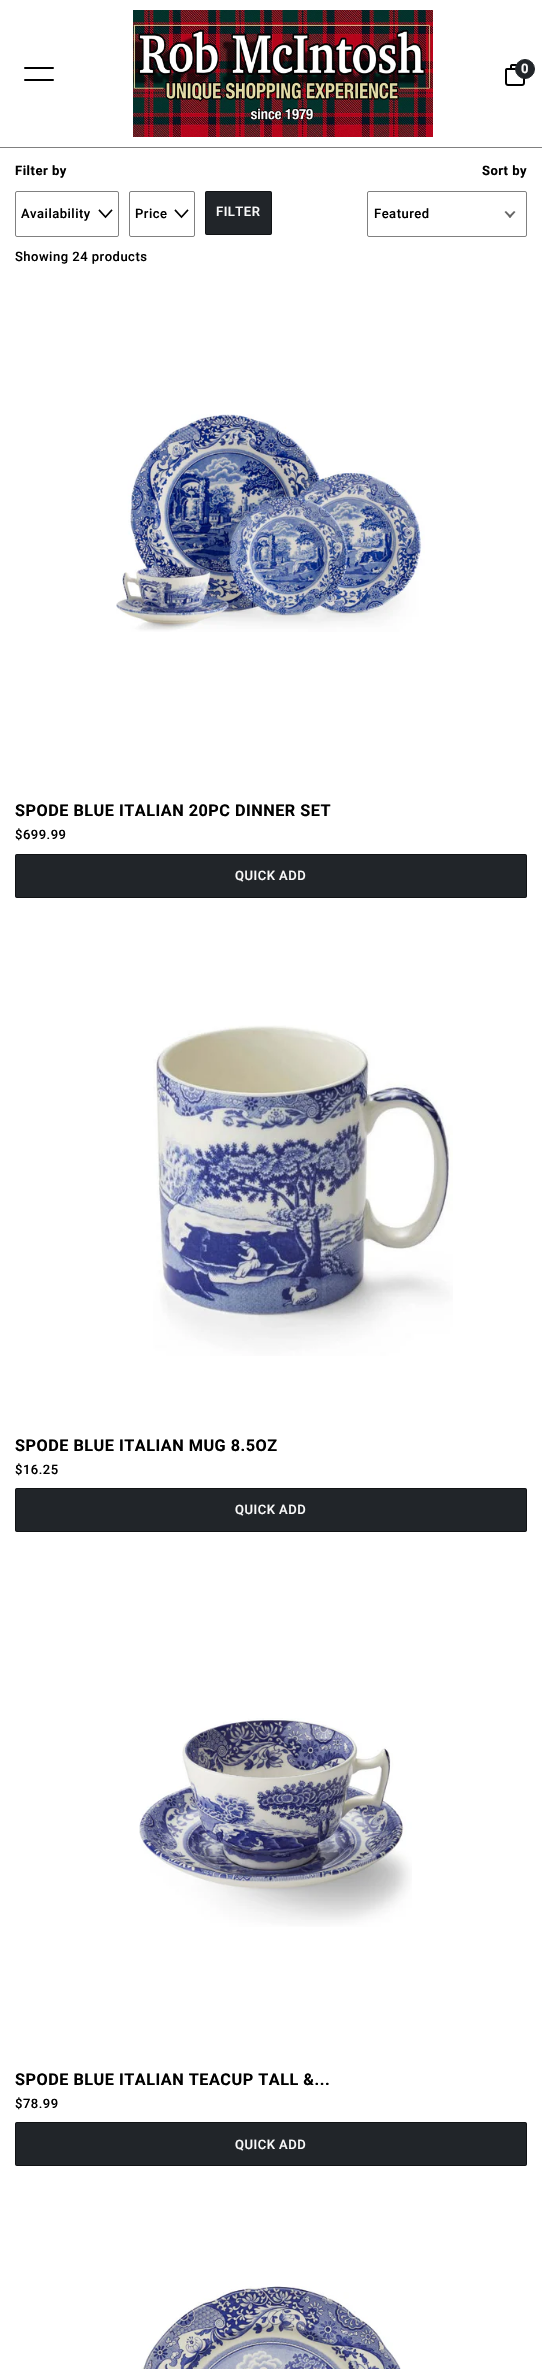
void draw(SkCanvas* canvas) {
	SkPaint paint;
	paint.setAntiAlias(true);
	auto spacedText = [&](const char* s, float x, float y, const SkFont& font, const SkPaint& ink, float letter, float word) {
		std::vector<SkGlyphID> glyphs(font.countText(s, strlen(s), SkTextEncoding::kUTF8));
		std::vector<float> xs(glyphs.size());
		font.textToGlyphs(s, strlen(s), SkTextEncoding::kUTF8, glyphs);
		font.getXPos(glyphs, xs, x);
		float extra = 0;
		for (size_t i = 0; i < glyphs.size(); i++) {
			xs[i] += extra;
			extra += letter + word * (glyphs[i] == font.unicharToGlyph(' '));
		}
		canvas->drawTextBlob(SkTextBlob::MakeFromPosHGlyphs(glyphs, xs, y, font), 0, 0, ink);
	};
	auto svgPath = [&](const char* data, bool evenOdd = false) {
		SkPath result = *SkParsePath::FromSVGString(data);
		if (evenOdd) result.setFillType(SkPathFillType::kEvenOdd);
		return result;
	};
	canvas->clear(0xffffffff);
	paint.setColor(0xff808080);
	canvas->drawRect(SkRect::MakeXYWH(0, 147, 542, 1), paint);
	paint.setStroke(true);
	paint.setStrokeWidth(2);
	paint.setStrokeCap(SkPaint::kRound_Cap);
	paint.setStrokeJoin(SkPaint::kRound_Join);
	paint.setColor(0xff000000);
	canvas->drawPath(svgPath("M25 80H53M25 68H53"), paint);
	canvas->drawImageRect(SkImages::DeferredFromEncodedData(SkData::MakeFromFileName("img1.png")), SkRect::MakeXYWH(133, 10, 300, 127), SkSamplingOptions());
	canvas->drawImageRect(SkImages::DeferredFromEncodedData(SkData::MakeFromFileName("img2.png")), SkRect::MakeXYWH(505, 64, 20, 22), SkSamplingOptions());
	paint.setStroke(false);
	paint.setColor(0xff212529);
	canvas->drawCircle(525, 69, 9.5, paint);
	paint.setStroke(true);
	paint.setStrokeWidth(1);
	paint.setStrokeCap(SkPaint::kButt_Cap);
	paint.setStrokeJoin(SkPaint::kMiter_Join);
	canvas->drawCircle(525, 69, 9.5, paint);
	SkFont f1(fontMgr->matchFamilyStyle("Roboto", SkFontStyle::Bold()), 13);
	f1.setSubpixel(true);
	paint.setStroke(false);
	paint.setColor(0xfffafafa);
	canvas->drawString("0", 521, 73, f1, paint);
	paint.setColor(0xff000000);
	spacedText("Filter by", 15, 175, f1, paint, 0.5, 0);
	spacedText("Sort by", 482, 175, f1, paint, 0.5, 0);
	paint.setStroke(true);
	paint.setColor(0xff808080);
	canvas->drawRoundRect(SkRect::MakeXYWH(15.5, 191.5, 103, 45), 1.5, 1.5, paint);
	SkFont f2(fontMgr->matchFamilyStyle("Roboto", SkFontStyle(500, SkFontStyle::kNormal_Width, SkFontStyle::kUpright_Slant)), 13);
	f2.setSubpixel(true);
	paint.setStroke(false);
	paint.setColor(0xff000000);
	spacedText("Availability", 21, 218, f2, paint, 0.5, 0);
	paint.setStroke(true);
	paint.setStrokeWidth(1.6);
	paint.setStrokeCap(SkPaint::kSquare_Cap);
	canvas->drawPath(svgPath("M111.5 210.5L105.5 217L99.5 210.5"), paint);
	paint.setStrokeWidth(1);
	paint.setStrokeCap(SkPaint::kButt_Cap);
	paint.setColor(0xff808080);
	canvas->drawRoundRect(SkRect::MakeXYWH(129.5, 191.5, 65, 45), 1.5, 1.5, paint);
	paint.setStroke(false);
	paint.setColor(0xff000000);
	spacedText("Price", 135, 218, f2, paint, 0.5, 0);
	paint.setStroke(true);
	paint.setStrokeWidth(1.6);
	paint.setStrokeCap(SkPaint::kSquare_Cap);
	canvas->drawPath(svgPath("M187.5 210.5L181.5 217L175.5 210.5"), paint);
	paint.setStroke(false);
	paint.setColor(0xff212529);
	canvas->drawRoundRect(SkRect::MakeXYWH(205, 191, 67, 44), 2, 2, paint);
	paint.setStroke(true);
	paint.setStrokeWidth(1);
	paint.setStrokeCap(SkPaint::kButt_Cap);
	paint.setColor(0x80000000);
	canvas->drawRoundRect(SkRect::MakeXYWH(205.5, 191.5, 66, 43), 1.5, 1.5, paint);
	paint.setStroke(false);
	paint.setColor(0xfffafafa);
	spacedText("FILTER", 216, 216, f2, paint, 0.5, 0);
	paint.setStroke(true);
	paint.setColor(0xff808080);
	canvas->drawRoundRect(SkRect::MakeXYWH(367.5, 191.5, 159, 45), 1.5, 1.5, paint);
	paint.setStroke(false);
	paint.setColor(0xff000000);
	spacedText("Featured", 374, 218, f2, paint, 0.5, 0);
	paint.setColor(0xff666666);
	canvas->drawPath(svgPath("M514 211L515.5 212L510 218L508.5 216.5Z"), paint);
	canvas->drawPath(svgPath("M506 211L511.5 216.5L510 218L504.5 212Z"), paint);
	paint.setColor(0xff000000);
	spacedText("Showing 24 products", 15, 261, f2, paint, 0.5, 0);
	canvas->drawImageRect(SkImages::DeferredFromEncodedData(SkData::MakeFromFileName("img3.png")), SkRect::MakeXYWH(116, 414, 309, 218), SkSamplingOptions());
	SkFont f3(fontMgr->matchFamilyStyle("Roboto", SkFontStyle::Bold()), 16.25);
	f3.setSubpixel(true);
	spacedText("SPODE BLUE ITALIAN 20PC DINNER SET", 15, 816, f3, paint, 0.5, 0);
	spacedText("$699.99", 15, 839, f2, paint, 0.5, 0);
	paint.setColor(0xff212529);
	canvas->drawRoundRect(SkRect::MakeXYWH(15, 854, 512, 44), 2, 2, paint);
	paint.setStroke(true);
	paint.setColor(0x80000000);
	canvas->drawRoundRect(SkRect::MakeXYWH(15.5, 854.5, 511, 43), 1.5, 1.5, paint);
	paint.setStroke(false);
	paint.setColor(0xfffafafa);
	spacedText("QUICK ADD", 235, 880, f2, paint, 0.5, 0);
	canvas->drawImageRect(SkImages::DeferredFromEncodedData(SkData::MakeFromFileName("img4.png")), SkRect::MakeXYWH(153, 1025, 300, 331), SkSamplingOptions());
	paint.setColor(0xff000000);
	spacedText("SPODE BLUE ITALIAN MUG 8.5OZ", 15, 1451, f3, paint, 0.5, 0);
	spacedText("$16.25", 15, 1474, f2, paint, 0.5, 0);
	paint.setColor(0xff212529);
	canvas->drawRoundRect(SkRect::MakeXYWH(15, 1488, 512, 44), 2, 2, paint);
	paint.setStroke(true);
	paint.setColor(0x80000000);
	canvas->drawRoundRect(SkRect::MakeXYWH(15.5, 1488.5, 511, 43), 1.5, 1.5, paint);
	paint.setStroke(false);
	paint.setColor(0xfffafafa);
	spacedText("QUICK ADD", 235, 1514, f2, paint, 0.5, 0);
	canvas->drawImageRect(SkImages::DeferredFromEncodedData(SkData::MakeFromFileName("img5.png")), SkRect::MakeXYWH(139, 1718, 273, 209), SkSamplingOptions());
	paint.setColor(0xff000000);
	spacedText("SPODE BLUE ITALIAN TEACUP TALL &...", 15, 2085, f3, paint, 0.5, 0);
	spacedText("$78.99", 15, 2108, f2, paint, 0.5, 0);
	paint.setColor(0xff212529);
	canvas->drawRoundRect(SkRect::MakeXYWH(15, 2122, 512, 44), 2, 2, paint);
	paint.setStroke(true);
	paint.setColor(0x80000000);
	canvas->drawRoundRect(SkRect::MakeXYWH(15.5, 2122.5, 511, 43), 1.5, 1.5, paint);
	paint.setStroke(false);
	paint.setColor(0xfffafafa);
	spacedText("QUICK ADD", 235, 2149, f2, paint, 0.5, 0);
	canvas->drawImageRect(SkImages::DeferredFromEncodedData(SkData::MakeFromFileName("img6.png")), SkRect::MakeXYWH(141, 2286, 260, 83), SkSamplingOptions());
}
